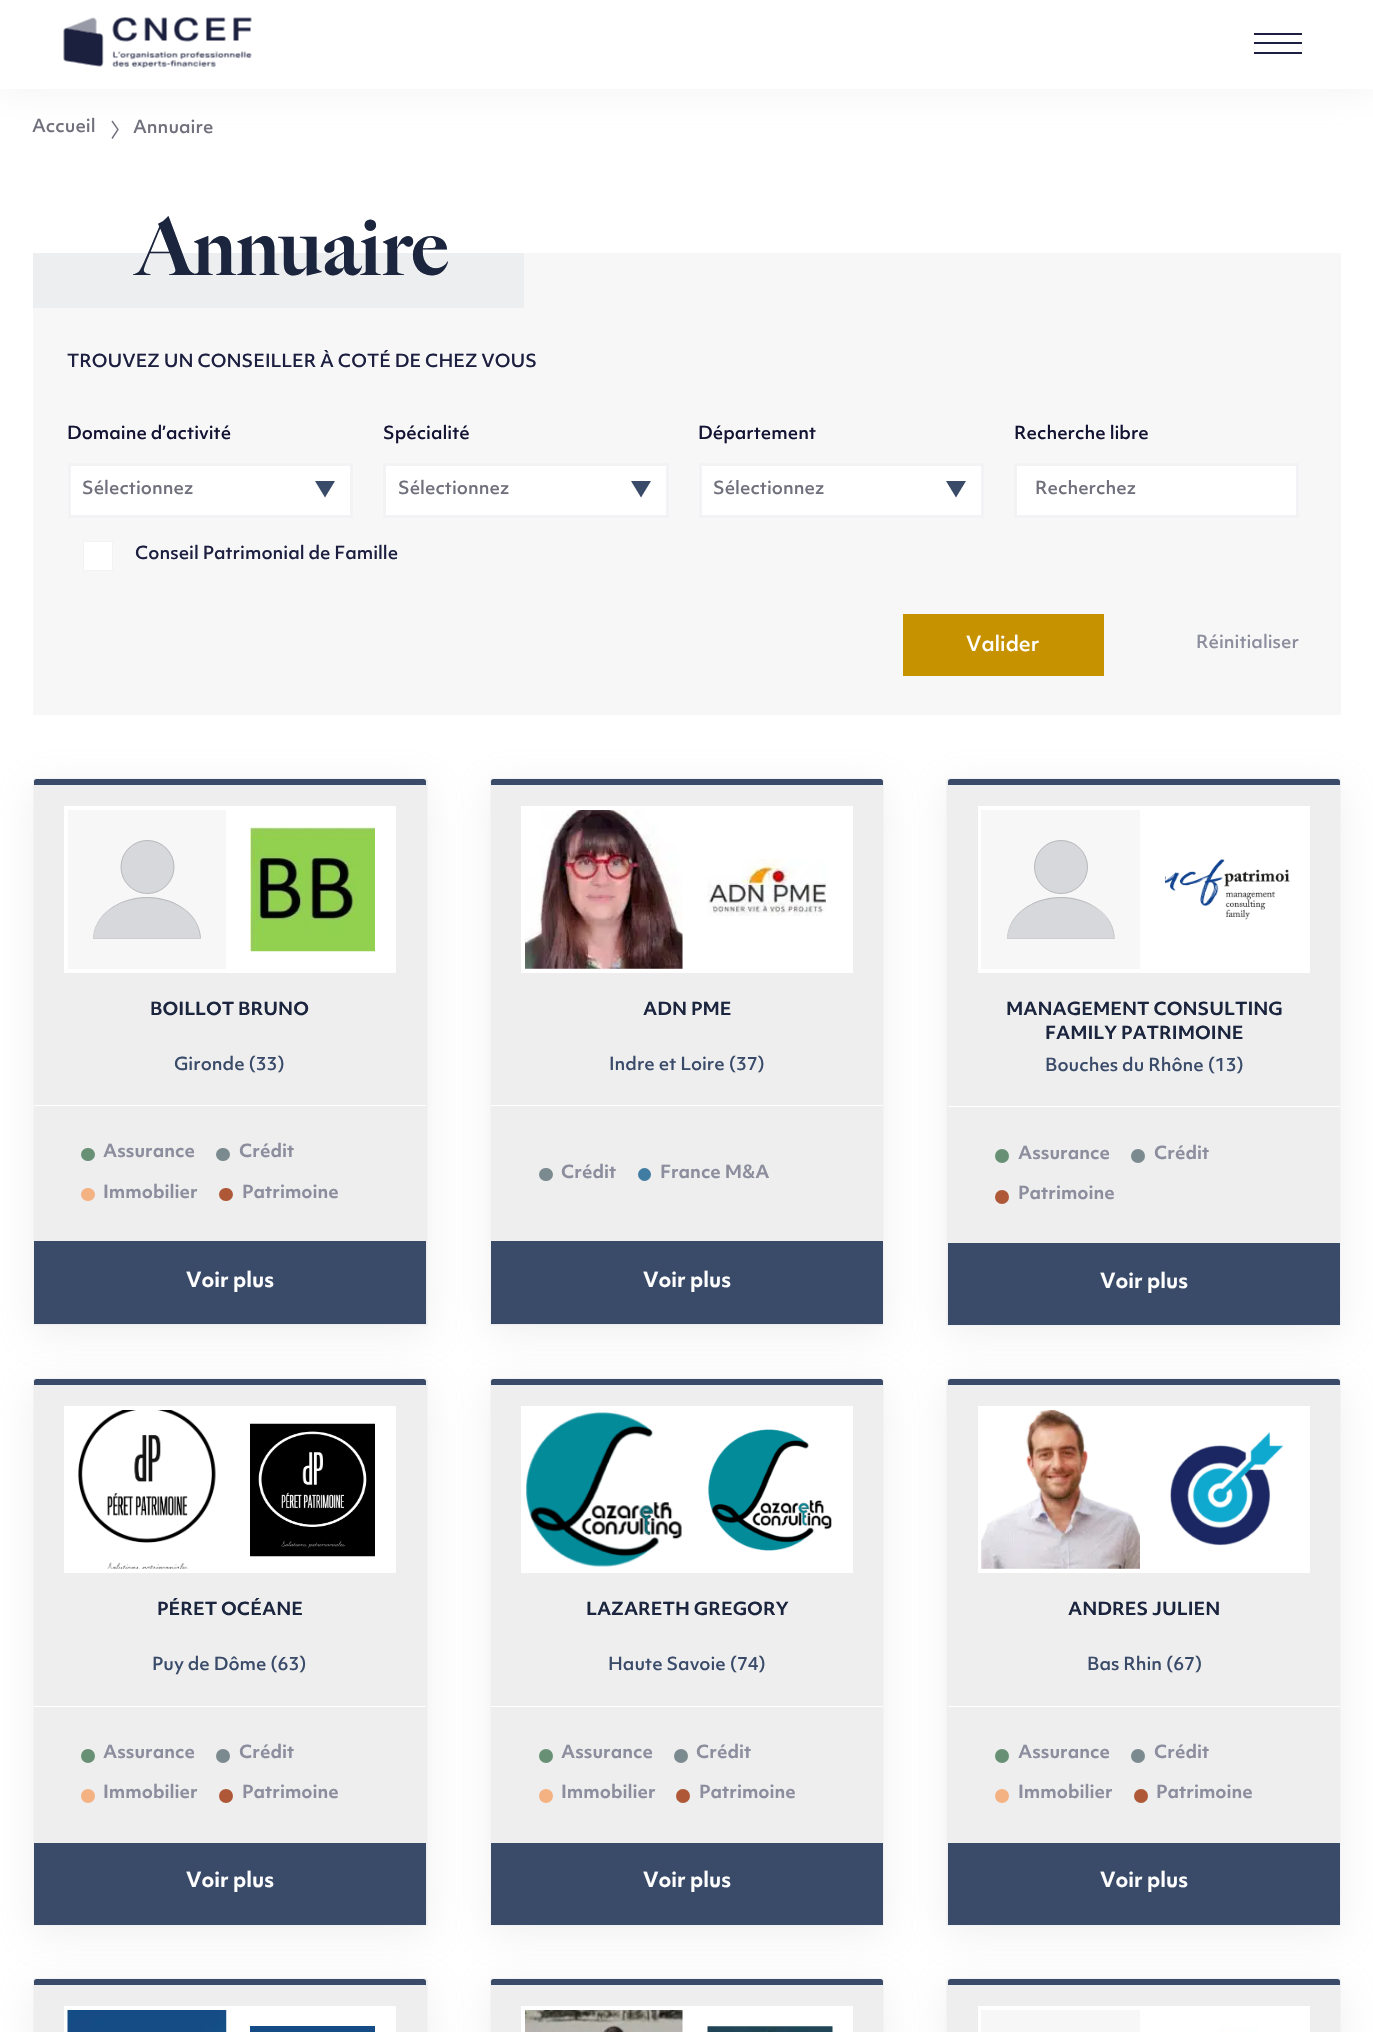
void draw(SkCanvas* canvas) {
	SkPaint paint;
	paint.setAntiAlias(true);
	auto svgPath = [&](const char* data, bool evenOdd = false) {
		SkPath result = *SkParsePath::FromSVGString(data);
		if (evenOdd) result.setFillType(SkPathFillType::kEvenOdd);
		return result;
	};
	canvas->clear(0xffffffff);
	paint.setStroke(true);
	paint.setStrokeWidth(1.4);
	paint.setColor(0xff6f707b);
	canvas->drawPath(svgPath("M112 138.5L118 129.5L112 121"), paint);
	paint.setStroke(false);
	paint.setColor(0x29aeb7ae);
	paint.setMaskFilter(SkMaskFilter::MakeBlur(kNormal_SkBlurStyle, 17.5));
	canvas->drawRect(SkRect::MakeXYWH(0, 4, 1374, 89), paint);
	paint.setMaskFilter(nullptr);
	paint.setColor(0xffffffff);
	canvas->drawRect(SkRect::MakeXYWH(0, 0, 1373, 89), paint);
	canvas->drawImageRect(SkImages::DeferredFromEncodedData(SkData::MakeFromFileName("img1.png")), SkRect::MakeXYWH(63, 17, 189, 51), SkSamplingOptions());
	paint.setColor(0xff1c1f40);
	canvas->drawRect(SkRect::MakeXYWH(1254, 42, 48, 2), paint);
	canvas->drawRect(SkRect::MakeXYWH(1254, 33, 48, 2), paint);
	canvas->drawRect(SkRect::MakeXYWH(1254, 52, 48, 2), paint);
	SkFont f1(fontMgr->matchFamilyStyle("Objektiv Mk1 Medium", SkFontStyle(500, SkFontStyle::kNormal_Width, SkFontStyle::kUpright_Slant)), 17.5);
	f1.setSubpixel(true);
	paint.setColor(0xff6f707b);
	canvas->drawString("Accueil", 32, 132, f1, paint);
	canvas->drawString("Annuaire", 133, 133, f1, paint);
	paint.setColor(0xfff7f7f7);
	canvas->drawRect(SkRect::MakeXYWH(33, 253, 1308, 462), paint);
	paint.setColor(0xffedeeef);
	canvas->drawRect(SkRect::MakeXYWH(33, 253, 491, 55), paint);
	SkFont f2(fontMgr->matchFamilyStyle("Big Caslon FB", SkFontStyle(900, SkFontStyle::kNormal_Width, SkFontStyle::kUpright_Slant)), 80);
	f2.setSubpixel(true);
	paint.setColor(0xff1c253e);
	canvas->drawString("Annuaire", 137, 275, f2, paint);
	paint.setColor(0xff1c1f40);
	canvas->drawString("TROUVEZ UN CONSEILLER À COTÉ DE CHEZ VOUS", 67, 367, f1, paint);
	paint.setColor(0xff121232);
	canvas->drawString("Domaine d’activité", 67, 439, f1, paint);
	paint.setColor(0xffffffff);
	canvas->drawRect(SkRect::MakeXYWH(71, 466, 279, 49), paint);
	paint.setColor(0xff3a4b69);
	canvas->drawPath(svgPath("M325 497.5L315 481H335Z"), paint);
	paint.setStroke(true);
	paint.setStrokeWidth(3);
	paint.setColor(0xfff3f3f5);
	canvas->drawRect(SkRect::MakeXYWH(69.5, 464.5, 282, 52), paint);
	paint.setStroke(false);
	paint.setColor(0xff6f707b);
	canvas->drawString("Sélectionnez", 82, 494, f1, paint);
	paint.setColor(0xff121232);
	canvas->drawString("Spécialité", 383, 439, f1, paint);
	paint.setColor(0xffffffff);
	canvas->drawRect(SkRect::MakeXYWH(386, 466, 280, 49), paint);
	paint.setColor(0xff3a4b69);
	canvas->drawPath(svgPath("M641 497.5L631 481H651Z"), paint);
	paint.setStroke(true);
	paint.setColor(0xfff3f3f5);
	canvas->drawRect(SkRect::MakeXYWH(384.5, 464.5, 283, 52), paint);
	paint.setStroke(false);
	paint.setColor(0xff6f707b);
	canvas->drawString("Sélectionnez", 398, 494, f1, paint);
	paint.setColor(0xff121232);
	canvas->drawString("Département", 698, 439, f1, paint);
	paint.setColor(0xffffffff);
	canvas->drawRect(SkRect::MakeXYWH(702, 466, 279, 49), paint);
	paint.setColor(0xff3a4b69);
	canvas->drawPath(svgPath("M956 497.5L946 481H966Z"), paint);
	paint.setStroke(true);
	paint.setColor(0xfff3f3f5);
	canvas->drawRect(SkRect::MakeXYWH(700.5, 464.5, 282, 52), paint);
	canvas->save();
	canvas->clipRect(SkRect::MakeXYWH(714, 480, 230, 19));
	paint.setStroke(false);
	paint.setColor(0xff6f707b);
	canvas->drawString("Sélectionnez", 713, 494, f1, paint);
	canvas->restore();
	paint.setColor(0xff121232);
	canvas->drawString("Recherche libre", 1014, 439, f1, paint);
	paint.setColor(0xffffffff);
	canvas->drawRect(SkRect::MakeXYWH(1015.5, 464.5, 282, 52), paint);
	paint.setStroke(true);
	paint.setColor(0xfff3f3f5);
	canvas->drawRect(SkRect::MakeXYWH(1015.5, 464.5, 282, 52), paint);
	canvas->save();
	canvas->clipRect(SkRect::MakeXYWH(1035, 480, 211, 19));
	paint.setStroke(false);
	paint.setColor(0xff6f707b);
	canvas->drawString("Recherchez", 1035, 494, f1, paint);
	canvas->restore();
	paint.setColor(0xffffffff);
	canvas->drawRect(SkRect::MakeXYWH(83.5, 541.5, 29, 29), paint);
	paint.setStroke(true);
	paint.setStrokeWidth(1);
	paint.setColor(0xfff3f3f5);
	canvas->drawRect(SkRect::MakeXYWH(83.5, 541.5, 29, 29), paint);
	paint.setStroke(false);
	paint.setColor(0xff1c1f40);
	canvas->drawString("Conseil Patrimonial de Famille", 135, 559, f1, paint);
	paint.setColor(0xffc79200);
	canvas->drawRect(SkRect::MakeXYWH(903, 614, 201, 62), paint);
	SkFont f3(fontMgr->matchFamilyStyle("Objektiv Mk1 Medium", SkFontStyle(500, SkFontStyle::kNormal_Width, SkFontStyle::kUpright_Slant)), 20);
	f3.setSubpixel(true);
	paint.setColor(0xffffffff);
	canvas->drawString("Valider", 966, 651, f3, paint);
	paint.setColor(0xff8c8e9e);
	canvas->drawString("Réinitialiser", 1196, 648, f1, paint);
	paint.setColor(0x36aeb7ae);
	paint.setMaskFilter(SkMaskFilter::MakeBlur(kNormal_SkBlurStyle, 19));
	canvas->drawRoundRect(SkRect::MakeXYWH(33, 786, 395, 549), 2.5, 2.5, paint);
	paint.setMaskFilter(nullptr);
	paint.setColor(0xffeeeeef);
	canvas->drawPath(svgPath("M35.5 778.5H425.5C426.5 778.5 427.5 779.5 427.5 780.5V1325.5H33.5V780.5C33.5 779.5 34.5 778.5 35.5 778.5Z"), paint);
	paint.setStroke(true);
	paint.setColor(0xfff3f3f5);
	canvas->drawPath(svgPath("M35.5 778.5H425.5C426.5 778.5 427.5 779.5 427.5 780.5V1325.5H33.5V780.5C33.5 779.5 34.5 778.5 35.5 778.5Z"), paint);
	paint.setStroke(false);
	paint.setColor(0xff3a4b69);
	canvas->drawPath(svgPath("M36.5 779H423.5C425 779 426 780 426 781.5V785H34V781.5C34 780 35 779 36.5 779Z"), paint);
	paint.setColor(0xffffffff);
	canvas->drawRect(SkRect::MakeXYWH(64, 806, 332, 167), paint);
	canvas->drawImageRect(SkImages::DeferredFromEncodedData(SkData::MakeFromFileName("img2.png")), SkRect::MakeXYWH(250, 827, 125, 125), SkSamplingOptions());
	paint.setColor(0xfff7f7f7);
	canvas->drawRect(SkRect::MakeXYWH(68, 810, 158, 159), paint);
	paint.setColor(0xffd7d8dc);
	canvas->drawPath(svgPath("M201 938H94C94 929 98 920 104 914C126 891 171 891 192 916C197 922 200 930 201 938Z"), paint);
	paint.setColor(0x4d707070);
	canvas->drawPath(svgPath("M147 898C124 898 95 911 94 938H200C199 911 170 898 147 898M147 897C177 897 201 916 201 939H93C93 916 118 897 147 897Z"), paint);
	paint.setColor(0xffd7d8dc);
	canvas->drawCircle(147.5, 867, 27, paint);
	paint.setStroke(true);
	paint.setColor(0x4d707070);
	canvas->drawCircle(147.5, 867, 26.5, paint);
	SkFont f4(fontMgr->matchFamilyStyle("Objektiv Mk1", SkFontStyle::Bold()), 17.5);
	f4.setSubpixel(true);
	paint.setStroke(false);
	paint.setColor(0xff1c253e);
	canvas->drawString("BOILLOT BRUNO", 150, 1015, f4, paint);
	paint.setColor(0xff3a4b69);
	canvas->drawString("Gironde (33)", 174, 1070, f1, paint);
	paint.setColor(0xffffffff);
	canvas->drawRect(SkRect::MakeXYWH(34, 1105, 392, 1), paint);
	paint.setColor(0xff689075);
	canvas->drawRoundRect(SkRect::MakeXYWH(81, 1148, 14, 13), 6.5, 6.5, paint);
	paint.setColor(0xff8c8e9e);
	canvas->drawString("Assurance", 103, 1157, f4, paint);
	paint.setColor(0xff7b8a8e);
	canvas->drawRoundRect(SkRect::MakeXYWH(216, 1148, 14, 13), 6.5, 6.5, paint);
	paint.setColor(0xff8c8e9e);
	canvas->drawString("Crédit", 239, 1157, f4, paint);
	paint.setColor(0xfff4b283);
	canvas->drawRoundRect(SkRect::MakeXYWH(81, 1188, 14, 13), 6.5, 6.5, paint);
	paint.setColor(0xff8c8e9e);
	canvas->drawString("Immobilier", 103, 1198, f4, paint);
	paint.setColor(0xffae5838);
	canvas->drawRoundRect(SkRect::MakeXYWH(219, 1188, 14, 13), 6.5, 6.5, paint);
	paint.setColor(0xff8c8e9e);
	canvas->drawString("Patrimoine", 242, 1198, f4, paint);
	paint.setColor(0xff3a4b69);
	canvas->drawRect(SkRect::MakeXYWH(34, 1241, 392, 83), paint);
	SkFont f5(fontMgr->matchFamilyStyle("Objektiv Mk1", SkFontStyle::Bold()), 20);
	f5.setSubpixel(true);
	paint.setColor(0xffffffff);
	canvas->drawString("Voir plus", 186, 1287, f5, paint);
	paint.setColor(0x36aeb7ae);
	paint.setMaskFilter(SkMaskFilter::MakeBlur(kNormal_SkBlurStyle, 19));
	canvas->drawRoundRect(SkRect::MakeXYWH(490, 786, 394, 549), 2.5, 2.5, paint);
	paint.setMaskFilter(nullptr);
	paint.setColor(0xffeeeeef);
	canvas->drawPath(svgPath("M492.5 778.5H881.5C882.5 778.5 883.5 779.5 883.5 780.5V1325.5H490.5V780.5C490.5 779.5 491.5 778.5 492.5 778.5Z"), paint);
	paint.setStroke(true);
	paint.setColor(0xfff3f3f5);
	canvas->drawPath(svgPath("M492.5 778.5H881.5C882.5 778.5 883.5 779.5 883.5 780.5V1325.5H490.5V780.5C490.5 779.5 491.5 778.5 492.5 778.5Z"), paint);
	paint.setStroke(false);
	paint.setColor(0xff3a4b69);
	canvas->drawPath(svgPath("M493.5 779H880.5C882 779 883 780 883 781.5V785H491V781.5C491 780 492 779 493.5 779Z"), paint);
	paint.setColor(0xffffffff);
	canvas->drawRect(SkRect::MakeXYWH(521, 806, 332, 167), paint);
	canvas->drawImageRect(SkImages::DeferredFromEncodedData(SkData::MakeFromFileName("img3.png")), SkRect::MakeXYWH(707, 859, 119, 57), SkSamplingOptions());
	canvas->drawImageRect(SkImages::DeferredFromEncodedData(SkData::MakeFromFileName("img4.png")), SkRect::MakeXYWH(525, 810, 158, 159), SkSamplingOptions());
	paint.setColor(0xff1c253e);
	canvas->drawString("ADN PME", 643, 1015, f4, paint);
	paint.setColor(0xff3a4b69);
	canvas->drawString("Indre et Loire (37)", 609, 1070, f1, paint);
	paint.setColor(0xffffffff);
	canvas->drawRect(SkRect::MakeXYWH(491, 1105, 392, 1), paint);
	paint.setColor(0xff7b8a8e);
	canvas->drawRoundRect(SkRect::MakeXYWH(539, 1168, 14, 13), 6.5, 6.5, paint);
	paint.setColor(0xff8c8e9e);
	canvas->drawString("Crédit", 561, 1178, f4, paint);
	paint.setColor(0xff417ca2);
	canvas->drawCircle(644.5, 1174.5, 6.5, paint);
	paint.setColor(0xff8c8e9e);
	canvas->drawString("France M&A", 660, 1178, f4, paint);
	paint.setColor(0xff3a4b69);
	canvas->drawRect(SkRect::MakeXYWH(491, 1241, 392, 83), paint);
	paint.setColor(0xffffffff);
	canvas->drawString("Voir plus", 643, 1287, f5, paint);
	paint.setColor(0x36aeb7ae);
	paint.setMaskFilter(SkMaskFilter::MakeBlur(kNormal_SkBlurStyle, 19));
	canvas->drawRoundRect(SkRect::MakeXYWH(946, 786, 395, 549), 2.5, 2.5, paint);
	paint.setMaskFilter(nullptr);
	paint.setColor(0xffeeeeef);
	canvas->drawPath(svgPath("M948.5 778.5H1338.5C1339.5 778.5 1340.5 779.5 1340.5 780.5V1325.5H946.5V780.5C946.5 779.5 947.5 778.5 948.5 778.5Z"), paint);
	paint.setStroke(true);
	paint.setColor(0xfff3f3f5);
	canvas->drawPath(svgPath("M948.5 778.5H1338.5C1339.5 778.5 1340.5 779.5 1340.5 780.5V1325.5H946.5V780.5C946.5 779.5 947.5 778.5 948.5 778.5Z"), paint);
	paint.setStroke(false);
	paint.setColor(0xff3a4b69);
	canvas->drawPath(svgPath("M950.5 779H1337.5C1339 779 1340 780 1340 781.5V785H948V781.5C948 780 949 779 950.5 779Z"), paint);
	paint.setColor(0xffffffff);
	canvas->drawRect(SkRect::MakeXYWH(978, 806, 332, 167), paint);
	canvas->drawImageRect(SkImages::DeferredFromEncodedData(SkData::MakeFromFileName("img5.png")), SkRect::MakeXYWH(1165, 859, 125, 61), SkSamplingOptions());
	paint.setColor(0xfff7f7f7);
	canvas->drawRect(SkRect::MakeXYWH(981, 810, 159, 159), paint);
	paint.setColor(0xffd7d8dc);
	canvas->drawPath(svgPath("M1114 938H1008C1008 929 1012 920 1018 914C1040 891 1084 891 1105 916C1111 922 1114 930 1114 938Z"), paint);
	paint.setColor(0x4d707070);
	canvas->drawPath(svgPath("M1061 898C1038 898 1009 911 1008 938H1114C1113 911 1084 898 1061 898M1061 897C1091 897 1115 916 1115 939H1007C1007 916 1031 897 1061 897Z"), paint);
	paint.setColor(0xffd7d8dc);
	canvas->drawCircle(1061, 867, 27, paint);
	paint.setStroke(true);
	paint.setColor(0x4d707070);
	canvas->drawCircle(1061, 867, 26.5, paint);
	paint.setStroke(false);
	paint.setColor(0xff1c253e);
	canvas->drawString("MANAGEMENT CONSULTING", 1006, 1015, f4, paint);
	canvas->drawString("FAMILY PATRIMOINE", 1045, 1039, f4, paint);
	paint.setColor(0xff3a4b69);
	canvas->drawString("Bouches du Rhône (13)", 1045, 1071, f1, paint);
	paint.setColor(0xffffffff);
	canvas->drawRect(SkRect::MakeXYWH(948, 1106, 392, 1), paint);
	paint.setColor(0xff689075);
	canvas->drawCircle(1002, 1156, 7, paint);
	paint.setColor(0xff8c8e9e);
	canvas->drawString("Assurance", 1018, 1159, f4, paint);
	paint.setColor(0xff7b8a8e);
	canvas->drawCircle(1138, 1156, 7, paint);
	paint.setColor(0xff8c8e9e);
	canvas->drawString("Crédit", 1154, 1159, f4, paint);
	paint.setColor(0xffae5838);
	canvas->drawCircle(1002, 1197, 7, paint);
	paint.setColor(0xff8c8e9e);
	canvas->drawString("Patrimoine", 1018, 1199, f4, paint);
	paint.setColor(0xff3a4b69);
	canvas->drawRect(SkRect::MakeXYWH(948, 1243, 392, 82), paint);
	paint.setColor(0xffffffff);
	canvas->drawString("Voir plus", 1100, 1288, f5, paint);
	paint.setColor(0x36aeb7ae);
	paint.setMaskFilter(SkMaskFilter::MakeBlur(kNormal_SkBlurStyle, 19));
	canvas->drawRoundRect(SkRect::MakeXYWH(33, 1386, 395, 549), 2.5, 2.5, paint);
	paint.setMaskFilter(nullptr);
	paint.setColor(0xffeeeeef);
	canvas->drawPath(svgPath("M35.5 1378.5H425.5C426.5 1378.5 427.5 1379.5 427.5 1380.5V1925.5H33.5V1380.5C33.5 1379.5 34.5 1378.5 35.5 1378.5Z"), paint);
	paint.setStroke(true);
	paint.setColor(0xfff3f3f5);
	canvas->drawPath(svgPath("M35.5 1378.5H425.5C426.5 1378.5 427.5 1379.5 427.5 1380.5V1925.5H33.5V1380.5C33.5 1379.5 34.5 1378.5 35.5 1378.5Z"), paint);
	paint.setStroke(false);
	paint.setColor(0xff3a4b69);
	canvas->drawPath(svgPath("M36.5 1379H423.5C425 1379 426 1380 426 1381.5V1385H34V1381.5C34 1380 35 1379 36.5 1379Z"), paint);
	paint.setColor(0xffffffff);
	canvas->drawRect(SkRect::MakeXYWH(64, 1406, 332, 167), paint);
	canvas->drawImageRect(SkImages::DeferredFromEncodedData(SkData::MakeFromFileName("img6.png")), SkRect::MakeXYWH(250, 1423, 125, 134), SkSamplingOptions());
	canvas->drawImageRect(SkImages::DeferredFromEncodedData(SkData::MakeFromFileName("img7.png")), SkRect::MakeXYWH(78, 1410, 138, 159), SkSamplingOptions());
	paint.setColor(0xff1c253e);
	canvas->drawString("PÉRET OCÉANE", 157, 1615, f4, paint);
	paint.setColor(0xff3a4b69);
	canvas->drawString("Puy de Dôme (63)", 152, 1670, f1, paint);
	paint.setColor(0xffffffff);
	canvas->drawRect(SkRect::MakeXYWH(34, 1706, 392, 1), paint);
	paint.setColor(0xff689075);
	canvas->drawCircle(88, 1756, 7, paint);
	paint.setColor(0xff8c8e9e);
	canvas->drawString("Assurance", 103, 1758, f4, paint);
	paint.setColor(0xff7b8a8e);
	canvas->drawCircle(223, 1756, 7, paint);
	paint.setColor(0xff8c8e9e);
	canvas->drawString("Crédit", 239, 1758, f4, paint);
	paint.setColor(0xfff4b283);
	canvas->drawCircle(88, 1796, 7, paint);
	paint.setColor(0xff8c8e9e);
	canvas->drawString("Immobilier", 103, 1798, f4, paint);
	paint.setColor(0xffae5838);
	canvas->drawCircle(226, 1796, 7, paint);
	paint.setColor(0xff8c8e9e);
	canvas->drawString("Patrimoine", 242, 1798, f4, paint);
	paint.setColor(0xff3a4b69);
	canvas->drawRect(SkRect::MakeXYWH(34, 1843, 392, 82), paint);
	paint.setColor(0xffffffff);
	canvas->drawString("Voir plus", 186, 1887, f5, paint);
	paint.setColor(0x36aeb7ae);
	paint.setMaskFilter(SkMaskFilter::MakeBlur(kNormal_SkBlurStyle, 19));
	canvas->drawRoundRect(SkRect::MakeXYWH(490, 1386, 394, 549), 2.5, 2.5, paint);
	paint.setMaskFilter(nullptr);
	paint.setColor(0xffeeeeef);
	canvas->drawPath(svgPath("M492.5 1378.5H881.5C882.5 1378.5 883.5 1379.5 883.5 1380.5V1925.5H490.5V1380.5C490.5 1379.5 491.5 1378.5 492.5 1378.5Z"), paint);
	paint.setStroke(true);
	paint.setColor(0xfff3f3f5);
	canvas->drawPath(svgPath("M492.5 1378.5H881.5C882.5 1378.5 883.5 1379.5 883.5 1380.5V1925.5H490.5V1380.5C490.5 1379.5 491.5 1378.5 492.5 1378.5Z"), paint);
	paint.setStroke(false);
	paint.setColor(0xff3a4b69);
	canvas->drawPath(svgPath("M493.5 1379H880.5C882 1379 883 1380 883 1381.5V1385H491V1381.5C491 1380 492 1379 493.5 1379Z"), paint);
	paint.setColor(0xffffffff);
	canvas->drawRect(SkRect::MakeXYWH(521, 1406, 332, 167), paint);
	canvas->drawImageRect(SkImages::DeferredFromEncodedData(SkData::MakeFromFileName("img8.png")), SkRect::MakeXYWH(708, 1429, 124, 122), SkSamplingOptions());
	canvas->drawImageRect(SkImages::DeferredFromEncodedData(SkData::MakeFromFileName("img9.png")), SkRect::MakeXYWH(526, 1412, 156, 155), SkSamplingOptions());
	paint.setColor(0xff1c253e);
	canvas->drawString("LAZARETH GREGORY", 586, 1615, f4, paint);
	paint.setColor(0xff3a4b69);
	canvas->drawString("Haute Savoie (74)", 608, 1670, f1, paint);
	paint.setColor(0xffffffff);
	canvas->drawRect(SkRect::MakeXYWH(491, 1706, 392, 1), paint);
	paint.setColor(0xff689075);
	canvas->drawCircle(546, 1756, 7, paint);
	paint.setColor(0xff8c8e9e);
	canvas->drawString("Assurance", 561, 1758, f4, paint);
	paint.setColor(0xff7b8a8e);
	canvas->drawCircle(681, 1756, 7, paint);
	paint.setColor(0xff8c8e9e);
	canvas->drawString("Crédit", 696, 1758, f4, paint);
	paint.setColor(0xfff4b283);
	canvas->drawCircle(546, 1796, 7, paint);
	paint.setColor(0xff8c8e9e);
	canvas->drawString("Immobilier", 561, 1798, f4, paint);
	paint.setColor(0xffae5838);
	canvas->drawCircle(683, 1796, 7, paint);
	paint.setColor(0xff8c8e9e);
	canvas->drawString("Patrimoine", 699, 1798, f4, paint);
	paint.setColor(0xff3a4b69);
	canvas->drawRect(SkRect::MakeXYWH(491, 1843, 392, 82), paint);
	paint.setColor(0xffffffff);
	canvas->drawString("Voir plus", 643, 1887, f5, paint);
	paint.setColor(0x36aeb7ae);
	paint.setMaskFilter(SkMaskFilter::MakeBlur(kNormal_SkBlurStyle, 19));
	canvas->drawRoundRect(SkRect::MakeXYWH(946, 1386, 395, 549), 2.5, 2.5, paint);
	paint.setMaskFilter(nullptr);
	paint.setColor(0xffeeeeef);
	canvas->drawPath(svgPath("M948.5 1378.5H1338.5C1339.5 1378.5 1340.5 1379.5 1340.5 1380.5V1925.5H946.5V1380.5C946.5 1379.5 947.5 1378.5 948.5 1378.5Z"), paint);
	paint.setStroke(true);
	paint.setColor(0xfff3f3f5);
	canvas->drawPath(svgPath("M948.5 1378.5H1338.5C1339.5 1378.5 1340.5 1379.5 1340.5 1380.5V1925.5H946.5V1380.5C946.5 1379.5 947.5 1378.5 948.5 1378.5Z"), paint);
	paint.setStroke(false);
	paint.setColor(0xff3a4b69);
	canvas->drawPath(svgPath("M950.5 1379H1337.5C1339 1379 1340 1380 1340 1381.5V1385H948V1381.5C948 1380 949 1379 950.5 1379Z"), paint);
	paint.setColor(0xffffffff);
	canvas->drawRect(SkRect::MakeXYWH(978, 1406, 332, 167), paint);
	canvas->drawImageRect(SkImages::DeferredFromEncodedData(SkData::MakeFromFileName("img10.png")), SkRect::MakeXYWH(1170, 1432, 114, 114), SkSamplingOptions());
	canvas->drawImageRect(SkImages::DeferredFromEncodedData(SkData::MakeFromFileName("img11.png")), SkRect::MakeXYWH(981, 1410, 159, 159), SkSamplingOptions());
	paint.setColor(0xff1c253e);
	canvas->drawString("ANDRES JULIEN", 1068, 1615, f4, paint);
	paint.setColor(0xff3a4b69);
	canvas->drawString("Bas Rhin (67)", 1087, 1670, f1, paint);
	paint.setColor(0xffffffff);
	canvas->drawRect(SkRect::MakeXYWH(948, 1706, 392, 1), paint);
	paint.setColor(0xff689075);
	canvas->drawCircle(1002, 1756, 7, paint);
	paint.setColor(0xff8c8e9e);
	canvas->drawString("Assurance", 1018, 1758, f4, paint);
	paint.setColor(0xff7b8a8e);
	canvas->drawCircle(1138, 1756, 7, paint);
	paint.setColor(0xff8c8e9e);
	canvas->drawString("Crédit", 1154, 1758, f4, paint);
	paint.setColor(0xfff4b283);
	canvas->drawCircle(1002, 1796, 7, paint);
	paint.setColor(0xff8c8e9e);
	canvas->drawString("Immobilier", 1018, 1798, f4, paint);
	paint.setColor(0xffae5838);
	canvas->drawCircle(1141, 1796, 7, paint);
	paint.setColor(0xff8c8e9e);
	canvas->drawString("Patrimoine", 1156, 1798, f4, paint);
	paint.setColor(0xff3a4b69);
	canvas->drawRect(SkRect::MakeXYWH(948, 1843, 392, 82), paint);
	paint.setColor(0xffffffff);
	canvas->drawString("Voir plus", 1100, 1887, f5, paint);
	paint.setColor(0x36aeb7ae);
	paint.setMaskFilter(SkMaskFilter::MakeBlur(kNormal_SkBlurStyle, 19));
	canvas->drawRoundRect(SkRect::MakeXYWH(33, 1986, 395, 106), 2.5, 2.5, paint);
	paint.setMaskFilter(nullptr);
	paint.setColor(0xffeeeeef);
	canvas->drawPath(svgPath("M35.5 1978.5H425.5C426.5 1978.5 427.5 1979.5 427.5 1980.5V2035.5H33.5V1980.5C33.5 1979.5 34.5 1978.5 35.5 1978.5Z"), paint);
	paint.setStroke(true);
	paint.setColor(0xfff3f3f5);
	canvas->drawPath(svgPath("M35.5 1978.5H425.5C426.5 1978.5 427.5 1979.5 427.5 1980.5V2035.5H33.5V1980.5C33.5 1979.5 34.5 1978.5 35.5 1978.5Z"), paint);
	paint.setStroke(false);
	paint.setColor(0xff3a4b69);
	canvas->drawPath(svgPath("M36.5 1979H423.5C425 1979 426 1980 426 1981.5V1985H34V1981.5C34 1980 35 1979 36.5 1979Z"), paint);
	paint.setColor(0xffffffff);
	canvas->drawRect(SkRect::MakeXYWH(64, 2006, 332, 26), paint);
	paint.setColor(0xff164c85);
	canvas->drawRect(SkRect::MakeXYWH(250, 2026, 125, 6), paint);
	canvas->drawImageRect(SkImages::DeferredFromEncodedData(SkData::MakeFromFileName("img12.png")), SkRect::MakeXYWH(67, 2010, 160, 22), SkSamplingOptions());
	paint.setColor(0x36aeb7ae);
	paint.setMaskFilter(SkMaskFilter::MakeBlur(kNormal_SkBlurStyle, 19));
	canvas->drawRoundRect(SkRect::MakeXYWH(490, 1986, 394, 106), 2.5, 2.5, paint);
	paint.setMaskFilter(nullptr);
	paint.setColor(0xffeeeeef);
	canvas->drawPath(svgPath("M492.5 1978.5H881.5C882.5 1978.5 883.5 1979.5 883.5 1980.5V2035.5H490.5V1980.5C490.5 1979.5 491.5 1978.5 492.5 1978.5Z"), paint);
	paint.setStroke(true);
	paint.setColor(0xfff3f3f5);
	canvas->drawPath(svgPath("M492.5 1978.5H881.5C882.5 1978.5 883.5 1979.5 883.5 1980.5V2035.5H490.5V1980.5C490.5 1979.5 491.5 1978.5 492.5 1978.5Z"), paint);
	paint.setStroke(false);
	paint.setColor(0xff3a4b69);
	canvas->drawPath(svgPath("M493.5 1979H880.5C882 1979 883 1980 883 1981.5V1985H491V1981.5C491 1980 492 1979 493.5 1979Z"), paint);
	paint.setColor(0xffffffff);
	canvas->drawRect(SkRect::MakeXYWH(521, 2006, 332, 26), paint);
	canvas->drawImageRect(SkImages::DeferredFromEncodedData(SkData::MakeFromFileName("img13.png")), SkRect::MakeXYWH(707, 2026, 126, 6), SkSamplingOptions());
	canvas->drawImageRect(SkImages::DeferredFromEncodedData(SkData::MakeFromFileName("img14.png")), SkRect::MakeXYWH(525, 2010, 158, 22), SkSamplingOptions());
	paint.setColor(0x36aeb7ae);
	paint.setMaskFilter(SkMaskFilter::MakeBlur(kNormal_SkBlurStyle, 19));
	canvas->drawRoundRect(SkRect::MakeXYWH(946, 1986, 395, 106), 2.5, 2.5, paint);
	paint.setMaskFilter(nullptr);
	paint.setColor(0xffeeeeef);
	canvas->drawPath(svgPath("M948.5 1978.5H1338.5C1339.5 1978.5 1340.5 1979.5 1340.5 1980.5V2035.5H946.5V1980.5C946.5 1979.5 947.5 1978.5 948.5 1978.5Z"), paint);
	paint.setStroke(true);
	paint.setColor(0xfff3f3f5);
	canvas->drawPath(svgPath("M948.5 1978.5H1338.5C1339.5 1978.5 1340.5 1979.5 1340.5 1980.5V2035.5H946.5V1980.5C946.5 1979.5 947.5 1978.5 948.5 1978.5Z"), paint);
	paint.setStroke(false);
	paint.setColor(0xff3a4b69);
	canvas->drawPath(svgPath("M950.5 1979H1337.5C1339 1979 1340 1980 1340 1981.5V1985H948V1981.5C948 1980 949 1979 950.5 1979Z"), paint);
	paint.setColor(0xffffffff);
	canvas->drawRect(SkRect::MakeXYWH(978, 2006, 332, 26), paint);
	canvas->drawImageRect(SkImages::DeferredFromEncodedData(SkData::MakeFromFileName("img15.png")), SkRect::MakeXYWH(1219, 2026, 39, 6), SkSamplingOptions());
	paint.setColor(0xfff7f7f7);
	canvas->drawRect(SkRect::MakeXYWH(981, 2010, 159, 22), paint);
}
